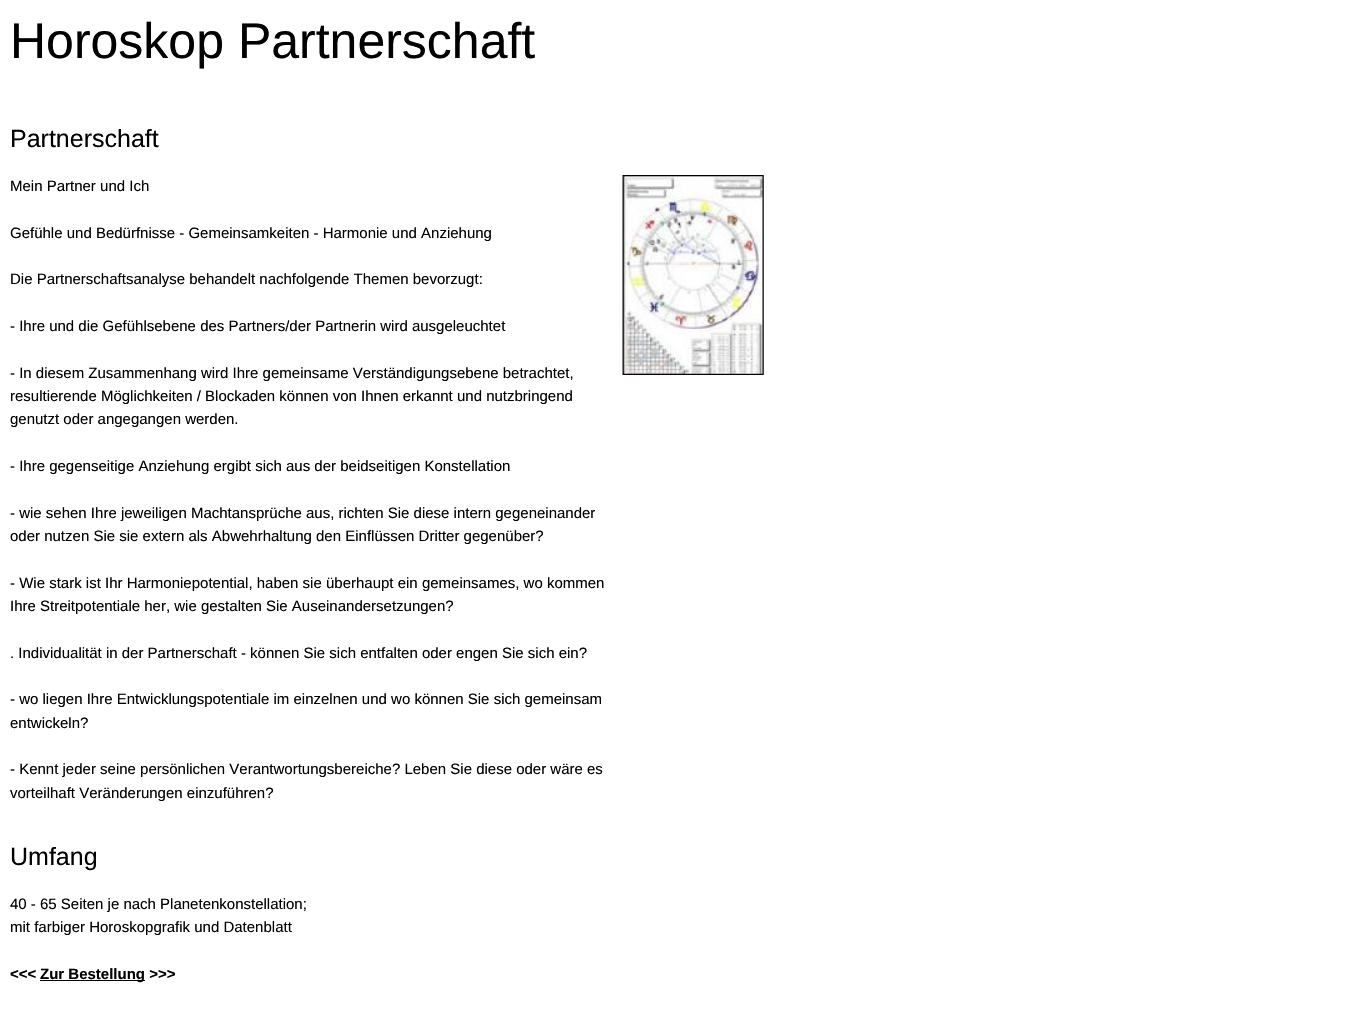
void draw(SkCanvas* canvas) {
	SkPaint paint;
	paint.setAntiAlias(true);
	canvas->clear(0xffffffff);
	SkFont f1(fontMgr->matchFamilyStyle("Liberation Sans", SkFontStyle::Normal()), 50);
	f1.setSubpixel(true);
	paint.setColor(0xff000000);
	canvas->drawString("Horoskop Partnerschaft", 10, 58, f1, paint);
	SkFont f2(fontMgr->matchFamilyStyle("Liberation Sans", SkFontStyle::Normal()), 25);
	f2.setSubpixel(true);
	canvas->drawString("Partnerschaft", 10, 147, f2, paint);
	SkFont f3(fontMgr->matchFamilyStyle("Liberation Sans", SkFontStyle::Normal()), 15);
	f3.setSubpixel(true);
	canvas->drawString("Mein Partner und Ich", 10, 191, f3, paint);
	canvas->drawString("Gefühle und Bedürfnisse - Gemeinsamkeiten - Harmonie und Anziehung", 10, 238, f3, paint);
	canvas->drawString("Die Partnerschaftsanalyse behandelt nachfolgende Themen bevorzugt:", 10, 284, f3, paint);
	canvas->drawString("- Ihre und die Gefühlsebene des Partners/der Partnerin wird ausgeleuchtet", 10, 331, f3, paint);
	canvas->drawString("- In diesem Zusammenhang wird Ihre gemeinsame Verständigungsebene betrachtet,", 10, 378, f3, paint);
	canvas->drawString("resultierende Möglichkeiten / Blockaden können von Ihnen erkannt und nutzbringend", 10, 401, f3, paint);
	canvas->drawString("genutzt oder angegangen werden.", 10, 424, f3, paint);
	canvas->drawString("- Ihre gegenseitige Anziehung ergibt sich aus der beidseitigen Konstellation", 10, 471, f3, paint);
	canvas->drawString("- wie sehen Ihre jeweiligen Machtansprüche aus, richten Sie diese intern gegeneinander", 10, 518, f3, paint);
	canvas->drawString("oder nutzen Sie sie extern als Abwehrhaltung den Einflüssen Dritter gegenüber?", 10, 541, f3, paint);
	canvas->drawString("- Wie stark ist Ihr Harmoniepotential, haben sie überhaupt ein gemeinsames, wo kommen", 10, 588, f3, paint);
	canvas->drawString("Ihre Streitpotentiale her, wie gestalten Sie Auseinandersetzungen?", 10, 611, f3, paint);
	canvas->drawString(". Individualität in der Partnerschaft - können Sie sich entfalten oder engen Sie sich ein?", 10, 658, f3, paint);
	canvas->drawString("- wo liegen Ihre Entwicklungspotentiale im einzelnen und wo können Sie sich gemeinsam", 10, 704, f3, paint);
	canvas->drawString("entwickeln?", 10, 728, f3, paint);
	canvas->drawString("- Kennt jeder seine persönlichen Verantwortungsbereiche? Leben Sie diese oder wäre es", 10, 774, f3, paint);
	canvas->drawString("vorteilhaft Veränderungen einzuführen?", 10, 798, f3, paint);
	canvas->drawImageRect(SkImages::DeferredFromEncodedData(SkData::MakeFromFileName("img1.png")), SkRect::MakeXYWH(622, 175, 142, 200), SkSamplingOptions());
	canvas->drawString("Umfang", 10, 865, f2, paint);
	canvas->drawString("40 - 65 Seiten je nach Planetenkonstellation;", 10, 909, f3, paint);
	canvas->drawString("mit farbiger Horoskopgrafik und Datenblatt", 10, 932, f3, paint);
	SkFont f4(fontMgr->matchFamilyStyle("Liberation Sans", SkFontStyle::Bold()), 15);
	f4.setSubpixel(true);
	canvas->drawString("<<<", 10, 979, f4, paint);
	canvas->drawRect(SkRect::MakeXYWH(40, 980, 105, 1), paint);
	canvas->drawString("Zur Bestellung >>>", 40, 979, f4, paint);
}
